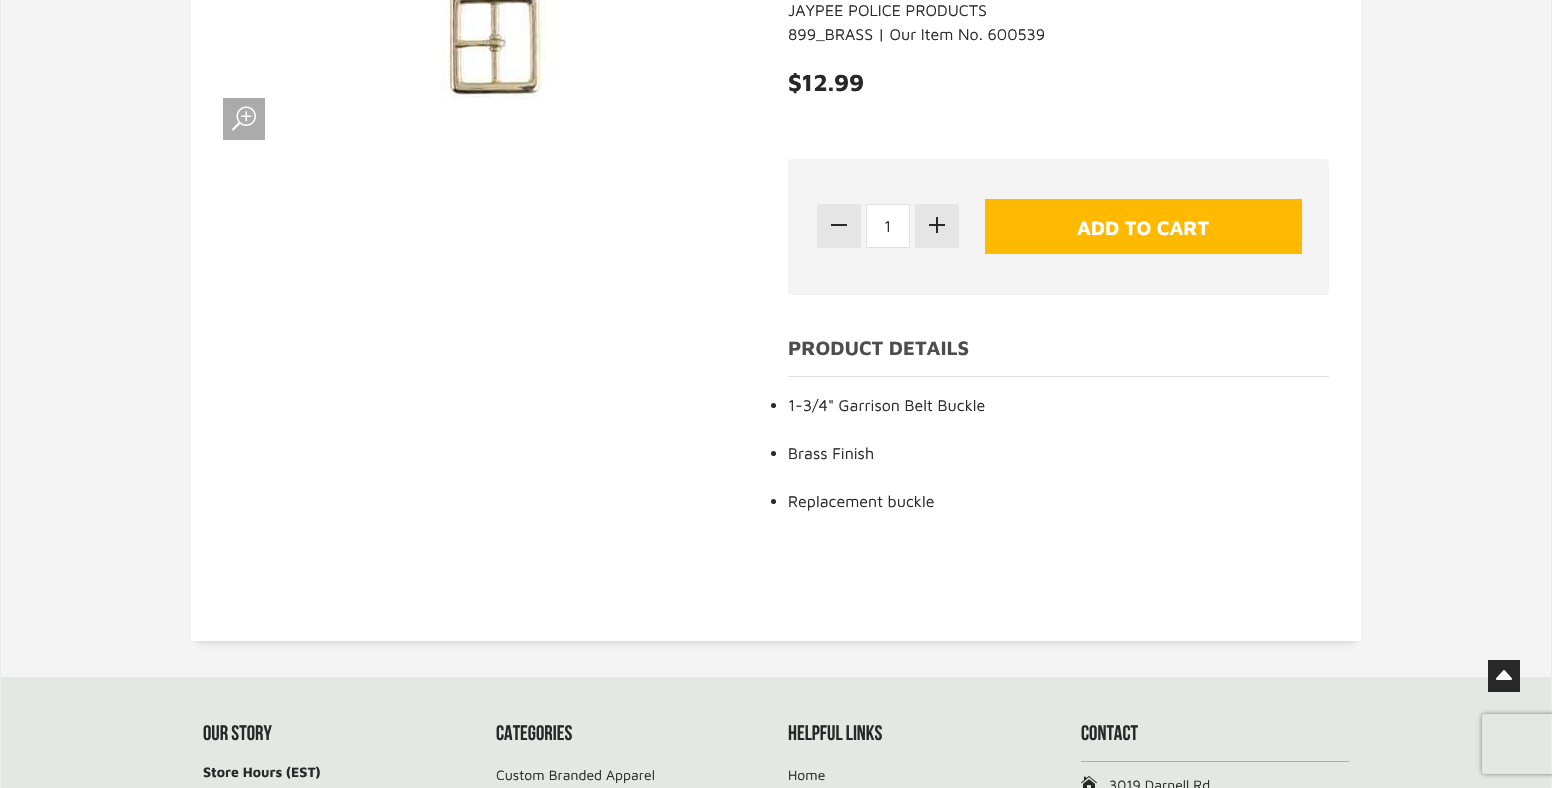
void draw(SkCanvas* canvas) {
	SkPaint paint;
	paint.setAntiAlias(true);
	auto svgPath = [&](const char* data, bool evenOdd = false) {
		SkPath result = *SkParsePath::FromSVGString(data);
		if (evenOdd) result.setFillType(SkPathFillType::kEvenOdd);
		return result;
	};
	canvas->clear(0xfff4f4f4);
	paint.setColor(0xffebebeb);
	canvas->drawRect(SkRect::MakeXYWH(1551, 0, 1, 788), paint);
	canvas->drawRect(SkRect::MakeXYWH(0, 0, 1, 788), paint);
	paint.setColor(0x33000000);
	paint.setMaskFilter(SkMaskFilter::MakeBlur(kNormal_SkBlurStyle, 4));
	canvas->drawRect(SkRect::MakeXYWH(197, -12, 1158, 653), paint);
	paint.setMaskFilter(nullptr);
	paint.setColor(0xffffffff);
	canvas->drawRect(SkRect::MakeXYWH(191, 0, 1170, 641), paint);
	canvas->drawImageRect(SkImages::DeferredFromEncodedData(SkData::MakeFromFileName("img1.png")), SkRect::MakeXYWH(442, 0, 111, 100), SkSamplingOptions());
	paint.setColor(0xffababab);
	canvas->drawRect(SkRect::MakeXYWH(223, 98, 42, 42), paint);
	canvas->drawImageRect(SkImages::DeferredFromEncodedData(SkData::MakeFromFileName("img2.png")), SkRect::MakeXYWH(232, 106, 24, 25), SkSamplingOptions());
	SkFont f1(fontMgr->matchFamilyStyle("Maven Pro", SkFontStyle::Normal()), 16);
	f1.setSubpixel(true);
	paint.setColor(0xff282828);
	canvas->drawString("JAYPEE POLICE PRODUCTS", 788, 16, f1, paint);
	canvas->drawString("899_BRASS | Our Item No. 600539", 788, 40, f1, paint);
	SkFont f2(fontMgr->matchFamilyStyle("Maven Pro", SkFontStyle::Bold()), 24);
	f2.setSubpixel(true);
	canvas->drawString("$12.99", 788, 91, f2, paint);
	paint.setColor(0xfff4f4f4);
	canvas->drawRoundRect(SkRect::MakeXYWH(788, 159, 541, 136), 4, 4, paint);
	paint.setColor(0xffe5e5e5);
	canvas->drawRect(SkRect::MakeXYWH(817, 204, 44, 44), paint);
	paint.setColor(0xff282828);
	canvas->drawRect(SkRect::MakeXYWH(831, 224, 16, 2), paint);
	paint.setColor(0xffffffff);
	canvas->drawRect(SkRect::MakeXYWH(866.5, 204.5, 43, 43), paint);
	paint.setStroke(true);
	paint.setStrokeWidth(1);
	paint.setColor(0xffdfe1e1);
	canvas->drawRect(SkRect::MakeXYWH(866.5, 204.5, 43, 43), paint);
	paint.setStroke(false);
	paint.setColor(0xff282828);
	canvas->drawString("1", 884, 232, f1, paint);
	paint.setColor(0xffe5e5e5);
	canvas->drawRect(SkRect::MakeXYWH(915, 204, 44, 44), paint);
	canvas->drawImageRect(SkImages::DeferredFromEncodedData(SkData::MakeFromFileName("img3.png")), SkRect::MakeXYWH(929, 217, 16, 16), SkSamplingOptions());
	paint.setColor(0xffffba00);
	canvas->drawRect(SkRect::MakeXYWH(985, 199, 317, 55), paint);
	SkFont f3(fontMgr->matchFamilyStyle("Maven Pro", SkFontStyle::Bold()), 20);
	f3.setSubpixel(true);
	paint.setColor(0xffffffff);
	canvas->drawString("ADD TO CART", 1077, 235, f3, paint);
	paint.setColor(0xff4d4d4d);
	canvas->drawString("PRODUCT DETAILS", 788, 355, f3, paint);
	paint.setColor(0xffdfe1e1);
	canvas->drawRect(SkRect::MakeXYWH(788, 376, 541, 1), paint);
	paint.setColor(0xff282828);
	canvas->drawCircle(773.5, 405.5, 2.5, paint);
	canvas->drawString("1-3/4\" Garrison Belt Buckle", 788, 411, f1, paint);
	canvas->drawCircle(773.5, 453.5, 2.5, paint);
	canvas->drawString("Brass Finish", 788, 459, f1, paint);
	canvas->drawCircle(773.5, 501.5, 2.5, paint);
	canvas->drawString("Replacement buckle", 788, 507, f1, paint);
	paint.setColor(0xffe5e7e3);
	canvas->drawRect(SkRect::MakeXYWH(1, 677, 1550, 111), paint);
	paint.setColor(0xff292929);
	canvas->drawRect(SkRect::MakeXYWH(1488, 660, 32, 32), paint);
	canvas->drawImageRect(SkImages::DeferredFromEncodedData(SkData::MakeFromFileName("img4.png")), SkRect::MakeXYWH(1496, 670, 16, 10), SkSamplingOptions());
	SkFont f4(fontMgr->matchFamilyStyle("Bebas Neue", SkFontStyle::Bold()), 21);
	f4.setSubpixel(true);
	paint.setColor(0xff282828);
	canvas->drawString("OUR STORY", 203, 740, f4, paint);
	SkFont f5(fontMgr->matchFamilyStyle("Maven Pro", SkFontStyle::Bold()), 14);
	f5.setSubpixel(true);
	canvas->drawString("Store Hours (EST)", 203, 777, f5, paint);
	canvas->drawString("CATEGORIES", 496, 740, f4, paint);
	SkFont f6(fontMgr->matchFamilyStyle("Maven Pro", SkFontStyle::Normal()), 14);
	f6.setSubpixel(true);
	canvas->drawString("Custom Branded Apparel", 496, 780, f6, paint);
	canvas->drawString("HELPFUL LINKS", 788, 740, f4, paint);
	canvas->drawString("Home", 788, 780, f6, paint);
	canvas->drawString("CONTACT", 1081, 740, f4, paint);
	paint.setColor(0xffa9aba8);
	canvas->drawRect(SkRect::MakeXYWH(1081, 761, 268, 1), paint);
	canvas->drawImageRect(SkImages::DeferredFromEncodedData(SkData::MakeFromFileName("img5.png")), SkRect::MakeXYWH(1081, 776, 16, 12), SkSamplingOptions());
	paint.setColor(0xff282828);
	canvas->drawString("3019 Darnell Rd", 1109, 790, f6, paint);
	canvas->save();
	canvas->clipPath(svgPath("M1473 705H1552V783H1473ZM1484 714H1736C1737 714 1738 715 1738 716V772C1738 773 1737 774 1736 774H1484C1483 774 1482 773 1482 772V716C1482 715 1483 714 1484 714Z", true), true);
	paint.setColor(0xff808080);
	paint.setMaskFilter(SkMaskFilter::MakeBlur(kNormal_SkBlurStyle, 2.5));
	canvas->drawRoundRect(SkRect::MakeXYWH(1482, 714, 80, 60), 2, 2, paint);
	paint.setMaskFilter(nullptr);
	canvas->restore();
}
